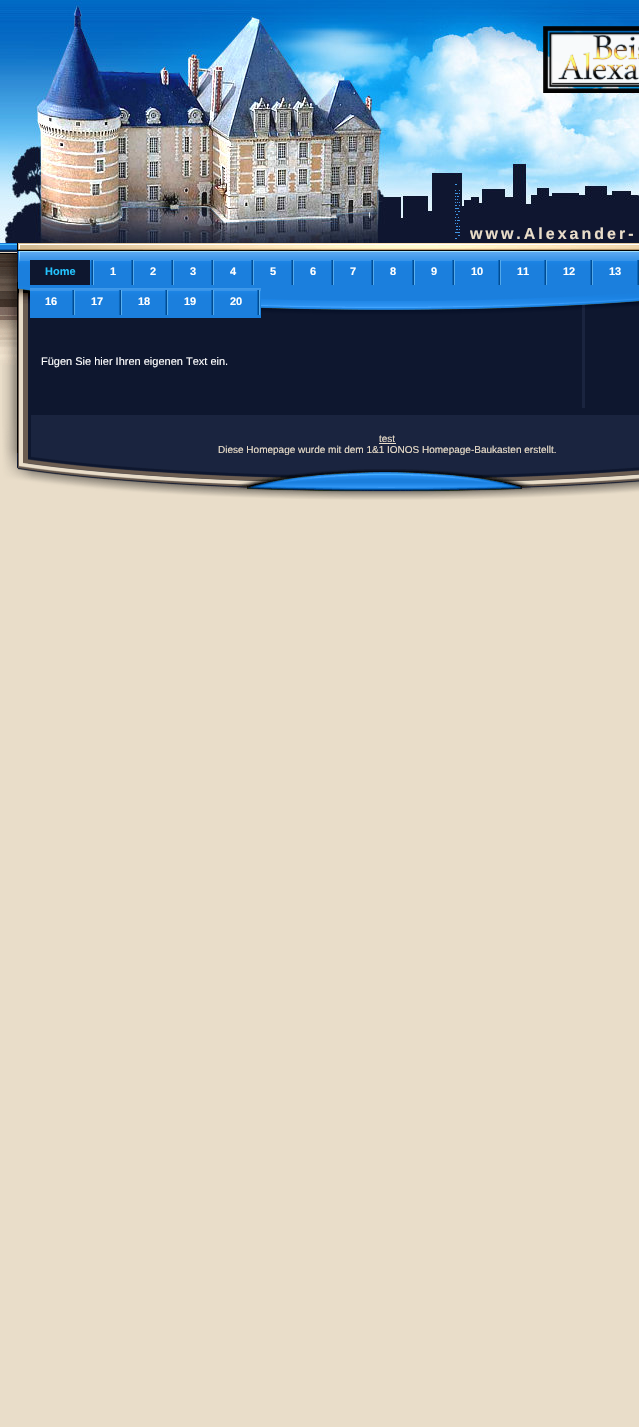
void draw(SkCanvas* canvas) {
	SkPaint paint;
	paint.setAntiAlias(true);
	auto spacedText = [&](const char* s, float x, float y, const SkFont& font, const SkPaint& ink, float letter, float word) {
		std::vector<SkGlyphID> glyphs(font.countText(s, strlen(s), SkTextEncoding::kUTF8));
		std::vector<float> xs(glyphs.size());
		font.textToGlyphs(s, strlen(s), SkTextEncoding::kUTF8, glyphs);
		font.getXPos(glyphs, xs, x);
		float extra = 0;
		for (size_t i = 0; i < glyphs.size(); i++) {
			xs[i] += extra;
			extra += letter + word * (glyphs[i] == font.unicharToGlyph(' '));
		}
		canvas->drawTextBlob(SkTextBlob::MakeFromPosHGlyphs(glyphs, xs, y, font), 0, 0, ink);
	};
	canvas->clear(0xffe9ddc9);
	canvas->drawImageRect(SkImages::DeferredFromEncodedData(SkData::MakeFromFileName("img1.png")), SkRect::MakeXYWH(2, 365, 637, 43), SkSamplingOptions());
	canvas->drawImageRect(SkImages::DeferredFromEncodedData(SkData::MakeFromFileName("img2.png")), SkRect::MakeXYWH(0, 0, 639, 243), SkSamplingOptions());
	canvas->drawImageRect(SkImages::DeferredFromEncodedData(SkData::MakeFromFileName("img3.png")), SkRect::MakeXYWH(18, 0, 376, 243), SkSamplingOptions());
	canvas->drawImageRect(SkImages::DeferredFromEncodedData(SkData::MakeFromFileName("img4.png")), SkRect::MakeXYWH(543, 26, 96, 67), SkSamplingOptions());
	canvas->drawImageRect(SkImages::DeferredFromEncodedData(SkData::MakeFromFileName("img5.png")), SkRect::MakeXYWH(455, 184, 5, 55), SkSamplingOptions());
	SkFont f1(fontMgr->matchFamilyStyle("Liberation Sans", SkFontStyle::Bold()), 16);
	f1.setSubpixel(true);
	paint.setColor(0xffe9ddc9);
	spacedText("www.Alexander-", 470, 239, f1, paint, 3, 0);
	canvas->drawImageRect(SkImages::DeferredFromEncodedData(SkData::MakeFromFileName("img6.png")), SkRect::MakeXYWH(0, 243, 639, 122), SkSamplingOptions());
	canvas->drawImageRect(SkImages::DeferredFromEncodedData(SkData::MakeFromFileName("img7.png")), SkRect::MakeXYWH(30, 260, 64, 25), SkSamplingOptions());
	SkFont f2(fontMgr->matchFamilyStyle("Liberation Sans", SkFontStyle::Bold()), 11);
	f2.setSubpixel(true);
	paint.setColor(0xff23c4ff);
	canvas->drawString("Home", 45, 275, f2, paint);
	canvas->drawImageRect(SkImages::DeferredFromEncodedData(SkData::MakeFromFileName("img8.png")), SkRect::MakeXYWH(131, 260, 3, 25), SkSamplingOptions());
	paint.setColor(0xffffffff);
	canvas->drawString("1", 110, 275, f2, paint);
	canvas->drawImageRect(SkImages::DeferredFromEncodedData(SkData::MakeFromFileName("img8.png")), SkRect::MakeXYWH(171, 260, 3, 25), SkSamplingOptions());
	canvas->drawString("2", 150, 275, f2, paint);
	canvas->drawImageRect(SkImages::DeferredFromEncodedData(SkData::MakeFromFileName("img8.png")), SkRect::MakeXYWH(211, 260, 3, 25), SkSamplingOptions());
	canvas->drawString("3", 190, 275, f2, paint);
	canvas->drawImageRect(SkImages::DeferredFromEncodedData(SkData::MakeFromFileName("img8.png")), SkRect::MakeXYWH(251, 260, 3, 25), SkSamplingOptions());
	canvas->drawString("4", 230, 275, f2, paint);
	canvas->drawImageRect(SkImages::DeferredFromEncodedData(SkData::MakeFromFileName("img8.png")), SkRect::MakeXYWH(291, 260, 3, 25), SkSamplingOptions());
	canvas->drawString("5", 270, 275, f2, paint);
	canvas->drawImageRect(SkImages::DeferredFromEncodedData(SkData::MakeFromFileName("img8.png")), SkRect::MakeXYWH(331, 260, 3, 25), SkSamplingOptions());
	canvas->drawString("6", 310, 275, f2, paint);
	canvas->drawImageRect(SkImages::DeferredFromEncodedData(SkData::MakeFromFileName("img8.png")), SkRect::MakeXYWH(371, 260, 3, 25), SkSamplingOptions());
	canvas->drawString("7", 350, 275, f2, paint);
	canvas->drawImageRect(SkImages::DeferredFromEncodedData(SkData::MakeFromFileName("img9.png")), SkRect::MakeXYWH(412, 260, 3, 25), SkSamplingOptions());
	canvas->drawString("8", 390, 275, f2, paint);
	canvas->drawImageRect(SkImages::DeferredFromEncodedData(SkData::MakeFromFileName("img8.png")), SkRect::MakeXYWH(452, 260, 3, 25), SkSamplingOptions());
	canvas->drawString("9", 431, 275, f2, paint);
	canvas->drawImageRect(SkImages::DeferredFromEncodedData(SkData::MakeFromFileName("img8.png")), SkRect::MakeXYWH(498, 260, 3, 25), SkSamplingOptions());
	canvas->drawString("10", 471, 275, f2, paint);
	canvas->drawImageRect(SkImages::DeferredFromEncodedData(SkData::MakeFromFileName("img8.png")), SkRect::MakeXYWH(544, 260, 3, 25), SkSamplingOptions());
	canvas->drawString("11", 517, 275, f2, paint);
	canvas->drawImageRect(SkImages::DeferredFromEncodedData(SkData::MakeFromFileName("img8.png")), SkRect::MakeXYWH(590, 260, 3, 25), SkSamplingOptions());
	canvas->drawString("12", 563, 275, f2, paint);
	canvas->drawImageRect(SkImages::DeferredFromEncodedData(SkData::MakeFromFileName("img10.png")), SkRect::MakeXYWH(637, 260, 2, 25), SkSamplingOptions());
	canvas->drawString("13", 609, 275, f2, paint);
	canvas->drawImageRect(SkImages::DeferredFromEncodedData(SkData::MakeFromFileName("img11.png")), SkRect::MakeXYWH(30, 288, 46, 30), SkSamplingOptions());
	canvas->drawString("16", 45, 305, f2, paint);
	canvas->drawImageRect(SkImages::DeferredFromEncodedData(SkData::MakeFromFileName("img12.png")), SkRect::MakeXYWH(76, 288, 47, 30), SkSamplingOptions());
	canvas->drawString("17", 91, 305, f2, paint);
	canvas->drawImageRect(SkImages::DeferredFromEncodedData(SkData::MakeFromFileName("img11.png")), SkRect::MakeXYWH(123, 288, 46, 30), SkSamplingOptions());
	canvas->drawString("18", 138, 305, f2, paint);
	canvas->drawImageRect(SkImages::DeferredFromEncodedData(SkData::MakeFromFileName("img11.png")), SkRect::MakeXYWH(169, 288, 46, 30), SkSamplingOptions());
	canvas->drawString("19", 184, 305, f2, paint);
	canvas->drawImageRect(SkImages::DeferredFromEncodedData(SkData::MakeFromFileName("img11.png")), SkRect::MakeXYWH(215, 288, 46, 30), SkSamplingOptions());
	canvas->drawString("20", 230, 305, f2, paint);
	SkFont f3(fontMgr->matchFamilyStyle("Liberation Sans", SkFontStyle::Normal()), 11);
	f3.setSubpixel(true);
	canvas->drawString("Fügen Sie hier Ihren eigenen Text ein.", 41, 365, f3, paint);
	canvas->drawImageRect(SkImages::DeferredFromEncodedData(SkData::MakeFromFileName("img13.png")), SkRect::MakeXYWH(2, 408, 637, 111), SkSamplingOptions());
	SkFont f4(fontMgr->matchFamilyStyle("Liberation Sans", SkFontStyle::Normal()), 10);
	f4.setSubpixel(true);
	paint.setColor(0xffe9ddc9);
	canvas->drawString("test", 379, 442, f4, paint);
	canvas->drawRect(SkRect::MakeXYWH(379, 443, 17, 1), paint);
	canvas->drawString("Diese Homepage wurde mit dem 1&1 IONOS Homepage-Baukasten erstellt.", 218, 453, f4, paint);
}
